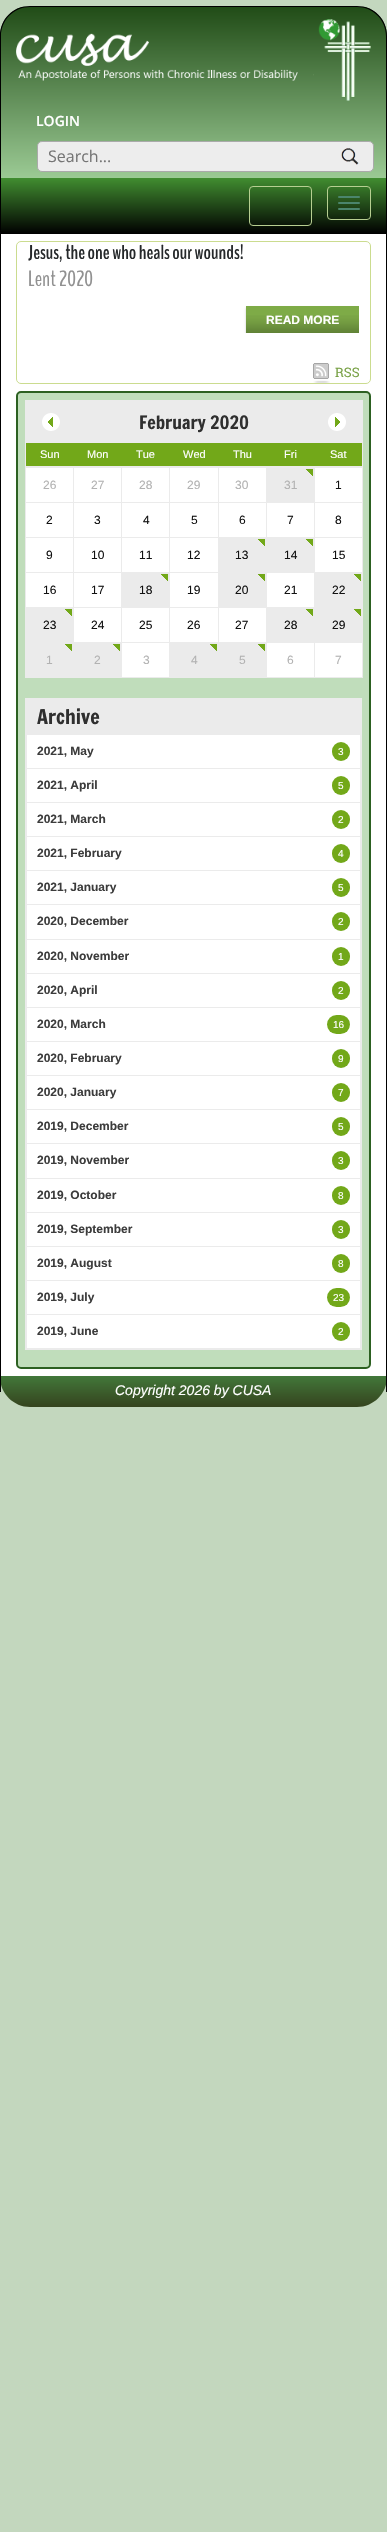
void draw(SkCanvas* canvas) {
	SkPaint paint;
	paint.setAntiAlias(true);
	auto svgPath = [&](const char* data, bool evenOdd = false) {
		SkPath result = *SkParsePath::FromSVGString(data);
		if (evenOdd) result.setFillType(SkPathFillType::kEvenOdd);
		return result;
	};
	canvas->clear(0xffc3d7be);
	canvas->save();
	canvas->clipPath(svgPath("M30 6H357C373.5 6 387 19.5 387 36V178H0V36C0 19.5 13.5 6 30 6Z"), true);
	{
		const SkColor colors[] = {0xff214c17, 0xff9bca94};
		const float stops[] = {0, 1};
		const SkPoint ends[] = {{194, 7}, {194, 178}};
		paint.setShader(SkGradientShader::MakeLinear(ends, colors, stops, 2, SkTileMode::kClamp));
		paint.setAlpha(255);
	}
	canvas->drawRect(SkRect::MakeXYWH(0, 7, 387, 171), paint);
	canvas->restore();
	paint.setShader(nullptr);
	paint.setColor(0xff000000);
	canvas->drawPath(svgPath("M30 6H357C374 6 387 19 387 36V178H0V36C0 19 13 6 30 6ZM30 7H357C373 7 386 20 386 36V178H1V36C1 20 14 7 30 7Z", true), paint);
	canvas->drawImageRect(SkImages::DeferredFromEncodedData(SkData::MakeFromFileName("img1.png")), SkRect::MakeXYWH(16, 19, 355, 82), SkSamplingOptions());
	SkFont f1(fontMgr->matchFamilyStyle("Open Sans", SkFontStyle(600, SkFontStyle::kNormal_Width, SkFontStyle::kUpright_Slant)), 14);
	f1.setSubpixel(true);
	paint.setColor(0xffffffff);
	canvas->drawString("LOGIN", 36, 126, f1, paint);
	paint.setColor(0xffededed);
	canvas->drawRoundRect(SkRect::MakeXYWH(37.5, 141.5, 336, 30), 4.5, 4.5, paint);
	paint.setStroke(true);
	paint.setStrokeWidth(1);
	paint.setColor(0xffaaaaaa);
	canvas->drawRoundRect(SkRect::MakeXYWH(37.5, 141.5, 336, 30), 4.5, 4.5, paint);
	SkFont f2(fontMgr->matchFamilyStyle("Open Sans", SkFontStyle::Normal()), 16);
	f2.setSubpixel(true);
	paint.setStroke(false);
	paint.setColor(0xff757575);
	canvas->drawString("Search...", 48, 162, f2, paint);
	canvas->drawImageRect(SkImages::DeferredFromEncodedData(SkData::MakeFromFileName("img2.png")), SkRect::MakeXYWH(341, 148, 18, 17), SkSamplingOptions());
	paint.setColor(0xff000000);
	canvas->drawRect(SkRect::MakeXYWH(386, 178, 1, 56), paint);
	canvas->drawRect(SkRect::MakeXYWH(0, 178, 1, 56), paint);
	{
		const SkColor colors[] = {0xff418d30, 0xff000000};
		const float stops[] = {0, 1};
		const SkPoint ends[] = {{194, 178}, {194, 234}};
		paint.setShader(SkGradientShader::MakeLinear(ends, colors, stops, 2, SkTileMode::kClamp));
		paint.setAlpha(255);
	}
	canvas->drawRect(SkRect::MakeXYWH(1, 178, 385, 56), paint);
	paint.setStroke(true);
	paint.setShader(nullptr);
	paint.setColor(0xffb7cf91);
	canvas->drawRoundRect(SkRect::MakeXYWH(249.5, 186.5, 62, 39), 3.5, 3.5, paint);
	canvas->drawRoundRect(SkRect::MakeXYWH(327.5, 186.5, 43, 33), 3.5, 3.5, paint);
	paint.setStroke(false);
	paint.setColor(0xff4b856c);
	canvas->drawRoundRect(SkRect::MakeXYWH(338, 196, 22, 2), 1, 1, paint);
	canvas->drawRoundRect(SkRect::MakeXYWH(338, 202, 22, 2), 1, 1, paint);
	canvas->drawRoundRect(SkRect::MakeXYWH(338, 208, 22, 2), 1, 1, paint);
	paint.setColor(0xffffffff);
	canvas->drawRect(SkRect::MakeXYWH(1, 234, 385, 1142), paint);
	paint.setStroke(true);
	paint.setColor(0xffcbdc8f);
	canvas->drawRoundRect(SkRect::MakeXYWH(16.5, 241.5, 354, 142), 4.5, 4.5, paint);
	SkFont f3(fontMgr->matchFamilyStyle("BenchNine", SkFontStyle::Bold()), 20);
	f3.setSubpixel(true);
	paint.setStroke(false);
	paint.setColor(0xff25282a);
	canvas->drawString("Jesus, the one who heals our wounds!", 28, 259, f3, paint);
	SkFont f4(fontMgr->matchFamilyStyle("BenchNine", SkFontStyle::Normal()), 22);
	f4.setSubpixel(true);
	paint.setColor(0xff919191);
	canvas->drawString("Lent 2020", 28, 286, f4, paint);
	canvas->save();
	canvas->clipRect(SkRect::MakeXYWH(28, 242, 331, 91));
	paint.setColor(0x33000000);
	paint.setMaskFilter(SkMaskFilter::MakeBlur(kNormal_SkBlurStyle, 1));
	canvas->drawRect(SkRect::MakeXYWH(246, 308, 113, 27), paint);
	paint.setMaskFilter(nullptr);
	canvas->restore();
	paint.setColor(0xff7eab47);
	canvas->drawRect(SkRect::MakeXYWH(246, 306, 113, 27), paint);
	canvas->drawImageRect(SkImages::DeferredFromEncodedData(SkData::MakeFromFileName("img3.png")), SkRect::MakeXYWH(246, 315, 113, 18), SkSamplingOptions());
	SkFont f5(fontMgr->matchFamilyStyle("Liberation Sans", SkFontStyle::Bold()), 12);
	f5.setSubpixel(true);
	paint.setColor(0xffffffff);
	canvas->drawString("READ MORE", 266, 324, f5, paint);
	canvas->drawImageRect(SkImages::DeferredFromEncodedData(SkData::MakeFromFileName("img4.png")), SkRect::MakeXYWH(313, 363, 17, 20), SkSamplingOptions());
	SkFont f6(fontMgr->matchFamilyStyle("Roboto Slab", SkFontStyle::Normal()), 13);
	f6.setSubpixel(true);
	paint.setColor(0xff78a145);
	canvas->drawString("RSS", 335, 377, f6, paint);
	paint.setColor(0xffc0ddbb);
	canvas->drawRoundRect(SkRect::MakeXYWH(17, 392, 353, 976), 4, 4, paint);
	paint.setStroke(true);
	paint.setStrokeWidth(2);
	paint.setColor(0xff2c6021);
	canvas->drawRoundRect(SkRect::MakeXYWH(17, 392, 353, 976), 4, 4, paint);
	paint.setStroke(false);
	paint.setColor(0xffebebeb);
	canvas->drawRect(SkRect::MakeXYWH(25, 400, 338, 1), paint);
	canvas->drawRect(SkRect::MakeXYWH(362, 400, 1, 278), paint);
	canvas->drawRect(SkRect::MakeXYWH(25, 677, 338, 1), paint);
	canvas->drawRect(SkRect::MakeXYWH(25, 400, 1, 278), paint);
	canvas->drawRect(SkRect::MakeXYWH(26, 401, 336, 42), paint);
	canvas->drawImageRect(SkImages::DeferredFromEncodedData(SkData::MakeFromFileName("img5.png")), SkRect::MakeXYWH(42, 413, 18, 18), SkSamplingOptions());
	SkFont f7(fontMgr->matchFamilyStyle("Francois One", SkFontStyle::Normal()), 18);
	f7.setSubpixel(true);
	paint.setColor(0xff2f2f2f);
	canvas->drawString("February 2020", 139, 429, f7, paint);
	canvas->drawImageRect(SkImages::DeferredFromEncodedData(SkData::MakeFromFileName("img6.png")), SkRect::MakeXYWH(328, 413, 18, 18), SkSamplingOptions());
	paint.setColor(0xff72a819);
	canvas->drawRect(SkRect::MakeXYWH(26, 443, 336, 23), paint);
	SkFont f8(fontMgr->matchFamilyStyle("Liberation Sans", SkFontStyle::Normal()), 11);
	f8.setSubpixel(true);
	paint.setColor(0xffffffff);
	canvas->drawString("Sun", 40, 458, f8, paint);
	canvas->drawString("Mon", 87, 458, f8, paint);
	canvas->drawString("Tue", 136, 458, f8, paint);
	canvas->drawString("Wed", 183, 458, f8, paint);
	canvas->drawString("Thu", 233, 458, f8, paint);
	canvas->drawString("Fri", 284, 458, f8, paint);
	paint.setColor(0xffebebeb);
	canvas->drawRect(SkRect::MakeXYWH(25, 502, 338, 1), paint);
	canvas->drawRect(SkRect::MakeXYWH(25, 537, 338, 1), paint);
	canvas->drawRect(SkRect::MakeXYWH(25, 572, 338, 1), paint);
	canvas->drawRect(SkRect::MakeXYWH(25, 607, 338, 1), paint);
	canvas->drawRect(SkRect::MakeXYWH(25, 642, 338, 1), paint);
	canvas->drawRect(SkRect::MakeXYWH(73, 642, 1, 36), paint);
	canvas->drawRect(SkRect::MakeXYWH(73, 607, 1, 36), paint);
	canvas->drawRect(SkRect::MakeXYWH(73, 572, 1, 36), paint);
	canvas->drawRect(SkRect::MakeXYWH(73, 537, 1, 36), paint);
	canvas->drawRect(SkRect::MakeXYWH(73, 466, 1, 72), paint);
	canvas->drawRect(SkRect::MakeXYWH(121, 642, 1, 36), paint);
	canvas->drawRect(SkRect::MakeXYWH(121, 607, 1, 36), paint);
	canvas->drawRect(SkRect::MakeXYWH(121, 572, 1, 36), paint);
	canvas->drawRect(SkRect::MakeXYWH(121, 537, 1, 36), paint);
	canvas->drawRect(SkRect::MakeXYWH(121, 466, 1, 72), paint);
	canvas->drawRect(SkRect::MakeXYWH(169, 642, 1, 36), paint);
	canvas->drawRect(SkRect::MakeXYWH(169, 607, 1, 36), paint);
	canvas->drawRect(SkRect::MakeXYWH(169, 572, 1, 36), paint);
	canvas->drawRect(SkRect::MakeXYWH(169, 537, 1, 36), paint);
	canvas->drawRect(SkRect::MakeXYWH(169, 466, 1, 72), paint);
	canvas->drawRect(SkRect::MakeXYWH(218, 642, 1, 36), paint);
	canvas->drawRect(SkRect::MakeXYWH(218, 607, 1, 36), paint);
	canvas->drawRect(SkRect::MakeXYWH(218, 572, 1, 36), paint);
	canvas->drawRect(SkRect::MakeXYWH(218, 537, 1, 36), paint);
	canvas->drawRect(SkRect::MakeXYWH(218, 466, 1, 72), paint);
	canvas->drawRect(SkRect::MakeXYWH(266, 642, 1, 36), paint);
	canvas->drawRect(SkRect::MakeXYWH(266, 607, 1, 36), paint);
	canvas->drawRect(SkRect::MakeXYWH(266, 572, 1, 36), paint);
	canvas->drawRect(SkRect::MakeXYWH(266, 537, 1, 36), paint);
	canvas->drawRect(SkRect::MakeXYWH(266, 466, 1, 72), paint);
	canvas->drawRect(SkRect::MakeXYWH(314, 642, 1, 36), paint);
	canvas->drawRect(SkRect::MakeXYWH(314, 607, 1, 36), paint);
	canvas->drawRect(SkRect::MakeXYWH(314, 572, 1, 36), paint);
	canvas->drawRect(SkRect::MakeXYWH(314, 537, 1, 36), paint);
	canvas->drawRect(SkRect::MakeXYWH(314, 466, 1, 72), paint);
	canvas->drawRect(SkRect::MakeXYWH(25, 466, 338, 2), paint);
	paint.setColor(0xffffffff);
	canvas->drawString("Sat", 330, 458, f8, paint);
	canvas->drawRect(SkRect::MakeXYWH(26, 468, 47, 34), paint);
	SkFont f9(fontMgr->matchFamilyStyle("Liberation Sans", SkFontStyle::Normal()), 12);
	f9.setSubpixel(true);
	paint.setColor(0xffb2b2b2);
	canvas->drawString("26", 43, 489, f9, paint);
	paint.setColor(0xffffffff);
	canvas->drawRect(SkRect::MakeXYWH(74, 468, 47, 34), paint);
	paint.setColor(0xffb2b2b2);
	canvas->drawString("27", 91, 489, f9, paint);
	paint.setColor(0xffffffff);
	canvas->drawRect(SkRect::MakeXYWH(122, 468, 47, 34), paint);
	paint.setColor(0xffb2b2b2);
	canvas->drawString("28", 139, 489, f9, paint);
	paint.setColor(0xffffffff);
	canvas->drawRect(SkRect::MakeXYWH(170, 468, 48, 34), paint);
	paint.setColor(0xffb2b2b2);
	canvas->drawString("29", 187, 489, f9, paint);
	paint.setColor(0xffffffff);
	canvas->drawRect(SkRect::MakeXYWH(219, 468, 47, 34), paint);
	paint.setColor(0xffb2b2b2);
	canvas->drawString("30", 235, 489, f9, paint);
	paint.setColor(0xffebebeb);
	canvas->drawRect(SkRect::MakeXYWH(267, 468, 47, 34), paint);
	canvas->drawImageRect(SkImages::DeferredFromEncodedData(SkData::MakeFromFileName("img7.png")), SkRect::MakeXYWH(306, 469, 7, 7), SkSamplingOptions());
	paint.setColor(0xffb2b2b2);
	canvas->drawString("31", 284, 489, f9, paint);
	paint.setColor(0xffffffff);
	canvas->drawRect(SkRect::MakeXYWH(315, 468, 47, 34), paint);
	paint.setColor(0xff111111);
	canvas->drawString("1", 335, 489, f9, paint);
	paint.setColor(0xffffffff);
	canvas->drawRect(SkRect::MakeXYWH(26, 503, 47, 34), paint);
	paint.setColor(0xff111111);
	canvas->drawString("2", 46, 524, f9, paint);
	paint.setColor(0xffffffff);
	canvas->drawRect(SkRect::MakeXYWH(74, 503, 47, 34), paint);
	paint.setColor(0xff111111);
	canvas->drawString("3", 94, 524, f9, paint);
	paint.setColor(0xffffffff);
	canvas->drawRect(SkRect::MakeXYWH(122, 503, 47, 34), paint);
	paint.setColor(0xff111111);
	canvas->drawString("4", 143, 524, f9, paint);
	paint.setColor(0xffffffff);
	canvas->drawRect(SkRect::MakeXYWH(170, 503, 48, 34), paint);
	paint.setColor(0xff111111);
	canvas->drawString("5", 191, 524, f9, paint);
	paint.setColor(0xffffffff);
	canvas->drawRect(SkRect::MakeXYWH(219, 503, 47, 34), paint);
	paint.setColor(0xff111111);
	canvas->drawString("6", 239, 524, f9, paint);
	paint.setColor(0xffffffff);
	canvas->drawRect(SkRect::MakeXYWH(267, 503, 47, 34), paint);
	paint.setColor(0xff111111);
	canvas->drawString("7", 287, 524, f9, paint);
	paint.setColor(0xffffffff);
	canvas->drawRect(SkRect::MakeXYWH(315, 503, 47, 34), paint);
	paint.setColor(0xff111111);
	canvas->drawString("8", 335, 524, f9, paint);
	paint.setColor(0xffffffff);
	canvas->drawRect(SkRect::MakeXYWH(26, 538, 47, 34), paint);
	paint.setColor(0xff111111);
	canvas->drawString("9", 46, 559, f9, paint);
	paint.setColor(0xffffffff);
	canvas->drawRect(SkRect::MakeXYWH(74, 538, 47, 34), paint);
	paint.setColor(0xff111111);
	canvas->drawString("10", 91, 559, f9, paint);
	paint.setColor(0xffffffff);
	canvas->drawRect(SkRect::MakeXYWH(122, 538, 47, 34), paint);
	paint.setColor(0xff111111);
	canvas->drawString("11", 139, 559, f9, paint);
	paint.setColor(0xffffffff);
	canvas->drawRect(SkRect::MakeXYWH(170, 538, 48, 34), paint);
	paint.setColor(0xff111111);
	canvas->drawString("12", 187, 559, f9, paint);
	paint.setColor(0xffebebeb);
	canvas->drawRect(SkRect::MakeXYWH(219, 538, 47, 34), paint);
	canvas->drawImageRect(SkImages::DeferredFromEncodedData(SkData::MakeFromFileName("img7.png")), SkRect::MakeXYWH(258, 539, 7, 7), SkSamplingOptions());
	paint.setColor(0xff111111);
	canvas->drawString("13", 235, 559, f9, paint);
	paint.setColor(0xffebebeb);
	canvas->drawRect(SkRect::MakeXYWH(267, 538, 47, 34), paint);
	canvas->drawImageRect(SkImages::DeferredFromEncodedData(SkData::MakeFromFileName("img7.png")), SkRect::MakeXYWH(306, 539, 7, 7), SkSamplingOptions());
	paint.setColor(0xff111111);
	canvas->drawString("14", 284, 559, f9, paint);
	paint.setColor(0xffffffff);
	canvas->drawRect(SkRect::MakeXYWH(315, 538, 47, 34), paint);
	paint.setColor(0xff111111);
	canvas->drawString("15", 332, 559, f9, paint);
	paint.setColor(0xffffffff);
	canvas->drawRect(SkRect::MakeXYWH(26, 573, 47, 34), paint);
	paint.setColor(0xff111111);
	canvas->drawString("16", 43, 594, f9, paint);
	paint.setColor(0xffffffff);
	canvas->drawRect(SkRect::MakeXYWH(74, 573, 47, 34), paint);
	paint.setColor(0xff111111);
	canvas->drawString("17", 91, 594, f9, paint);
	paint.setColor(0xffebebeb);
	canvas->drawRect(SkRect::MakeXYWH(122, 573, 47, 34), paint);
	canvas->drawImageRect(SkImages::DeferredFromEncodedData(SkData::MakeFromFileName("img7.png")), SkRect::MakeXYWH(161, 574, 7, 7), SkSamplingOptions());
	paint.setColor(0xff111111);
	canvas->drawString("18", 139, 594, f9, paint);
	paint.setColor(0xffffffff);
	canvas->drawRect(SkRect::MakeXYWH(170, 573, 48, 34), paint);
	paint.setColor(0xff111111);
	canvas->drawString("19", 187, 594, f9, paint);
	paint.setColor(0xffebebeb);
	canvas->drawRect(SkRect::MakeXYWH(219, 573, 47, 34), paint);
	canvas->drawImageRect(SkImages::DeferredFromEncodedData(SkData::MakeFromFileName("img7.png")), SkRect::MakeXYWH(258, 574, 7, 7), SkSamplingOptions());
	paint.setColor(0xff111111);
	canvas->drawString("20", 235, 594, f9, paint);
	paint.setColor(0xffffffff);
	canvas->drawRect(SkRect::MakeXYWH(267, 573, 47, 34), paint);
	paint.setColor(0xff111111);
	canvas->drawString("21", 284, 594, f9, paint);
	paint.setColor(0xffebebeb);
	canvas->drawRect(SkRect::MakeXYWH(315, 573, 47, 34), paint);
	canvas->drawImageRect(SkImages::DeferredFromEncodedData(SkData::MakeFromFileName("img7.png")), SkRect::MakeXYWH(354, 574, 7, 7), SkSamplingOptions());
	paint.setColor(0xff111111);
	canvas->drawString("22", 332, 594, f9, paint);
	paint.setColor(0xffebebeb);
	canvas->drawRect(SkRect::MakeXYWH(26, 608, 47, 34), paint);
	canvas->drawImageRect(SkImages::DeferredFromEncodedData(SkData::MakeFromFileName("img7.png")), SkRect::MakeXYWH(65, 609, 7, 7), SkSamplingOptions());
	paint.setColor(0xff111111);
	canvas->drawString("23", 43, 629, f9, paint);
	paint.setColor(0xffffffff);
	canvas->drawRect(SkRect::MakeXYWH(74, 608, 47, 34), paint);
	paint.setColor(0xff111111);
	canvas->drawString("24", 91, 629, f9, paint);
	paint.setColor(0xffffffff);
	canvas->drawRect(SkRect::MakeXYWH(122, 608, 47, 34), paint);
	paint.setColor(0xff111111);
	canvas->drawString("25", 139, 629, f9, paint);
	paint.setColor(0xffffffff);
	canvas->drawRect(SkRect::MakeXYWH(170, 608, 48, 34), paint);
	paint.setColor(0xff111111);
	canvas->drawString("26", 187, 629, f9, paint);
	paint.setColor(0xffffffff);
	canvas->drawRect(SkRect::MakeXYWH(219, 608, 47, 34), paint);
	paint.setColor(0xff111111);
	canvas->drawString("27", 235, 629, f9, paint);
	paint.setColor(0xffebebeb);
	canvas->drawRect(SkRect::MakeXYWH(267, 608, 47, 34), paint);
	canvas->drawImageRect(SkImages::DeferredFromEncodedData(SkData::MakeFromFileName("img7.png")), SkRect::MakeXYWH(306, 609, 7, 7), SkSamplingOptions());
	paint.setColor(0xff111111);
	canvas->drawString("28", 284, 629, f9, paint);
	paint.setColor(0xffebebeb);
	canvas->drawRect(SkRect::MakeXYWH(315, 608, 47, 34), paint);
	canvas->drawImageRect(SkImages::DeferredFromEncodedData(SkData::MakeFromFileName("img7.png")), SkRect::MakeXYWH(354, 609, 7, 7), SkSamplingOptions());
	paint.setColor(0xff111111);
	canvas->drawString("29", 332, 629, f9, paint);
	paint.setColor(0xffebebeb);
	canvas->drawRect(SkRect::MakeXYWH(26, 643, 47, 34), paint);
	canvas->drawImageRect(SkImages::DeferredFromEncodedData(SkData::MakeFromFileName("img7.png")), SkRect::MakeXYWH(65, 644, 7, 7), SkSamplingOptions());
	paint.setColor(0xffb2b2b2);
	canvas->drawString("1", 46, 664, f9, paint);
	paint.setColor(0xffebebeb);
	canvas->drawRect(SkRect::MakeXYWH(74, 643, 47, 34), paint);
	canvas->drawImageRect(SkImages::DeferredFromEncodedData(SkData::MakeFromFileName("img7.png")), SkRect::MakeXYWH(113, 644, 7, 7), SkSamplingOptions());
	paint.setColor(0xffb2b2b2);
	canvas->drawString("2", 94, 664, f9, paint);
	paint.setColor(0xffffffff);
	canvas->drawRect(SkRect::MakeXYWH(122, 643, 47, 34), paint);
	paint.setColor(0xffb2b2b2);
	canvas->drawString("3", 143, 664, f9, paint);
	paint.setColor(0xffebebeb);
	canvas->drawRect(SkRect::MakeXYWH(170, 643, 48, 34), paint);
	canvas->drawImageRect(SkImages::DeferredFromEncodedData(SkData::MakeFromFileName("img7.png")), SkRect::MakeXYWH(210, 644, 7, 7), SkSamplingOptions());
	paint.setColor(0xffb2b2b2);
	canvas->drawString("4", 191, 664, f9, paint);
	paint.setColor(0xffebebeb);
	canvas->drawRect(SkRect::MakeXYWH(219, 643, 47, 34), paint);
	canvas->drawImageRect(SkImages::DeferredFromEncodedData(SkData::MakeFromFileName("img7.png")), SkRect::MakeXYWH(258, 644, 7, 7), SkSamplingOptions());
	paint.setColor(0xffb2b2b2);
	canvas->drawString("5", 239, 664, f9, paint);
	paint.setColor(0xffffffff);
	canvas->drawRect(SkRect::MakeXYWH(267, 643, 47, 34), paint);
	paint.setColor(0xffb2b2b2);
	canvas->drawString("6", 287, 664, f9, paint);
	paint.setColor(0xffffffff);
	canvas->drawRect(SkRect::MakeXYWH(315, 643, 47, 34), paint);
	paint.setColor(0xffb2b2b2);
	canvas->drawString("7", 335, 664, f9, paint);
	paint.setStroke(true);
	paint.setColor(0xffebebeb);
	canvas->drawRect(SkRect::MakeXYWH(26, 699, 335, 650), paint);
	paint.setStroke(false);
	canvas->drawRect(SkRect::MakeXYWH(27, 700, 333, 35), paint);
	SkFont f10(fontMgr->matchFamilyStyle("Francois One", SkFontStyle::Normal()), 20);
	f10.setSubpixel(true);
	paint.setColor(0xff2f2f2f);
	canvas->drawString("Archive", 37, 724, f10, paint);
	paint.setColor(0xffffffff);
	canvas->drawRect(SkRect::MakeXYWH(27, 735, 333, 33), paint);
	paint.setColor(0xff3c3c3c);
	canvas->drawString("2021, May", 37, 755, f5, paint);
	paint.setColor(0xff72a819);
	canvas->drawRoundRect(SkRect::MakeXYWH(332, 742, 18, 19), 9, 9, paint);
	SkFont f11(fontMgr->matchFamilyStyle("Liberation Sans", SkFontStyle::Normal()), 10);
	f11.setSubpixel(true);
	paint.setColor(0xffffffff);
	canvas->drawString("3", 338, 755, f11, paint);
	paint.setColor(0xffebebeb);
	canvas->drawRect(SkRect::MakeXYWH(27, 768, 333, 1), paint);
	paint.setColor(0xffffffff);
	canvas->drawRect(SkRect::MakeXYWH(27, 769, 333, 33), paint);
	paint.setColor(0xff3c3c3c);
	canvas->drawString("2021, April", 37, 789, f5, paint);
	paint.setColor(0xff72a819);
	canvas->drawRoundRect(SkRect::MakeXYWH(332, 776, 18, 19), 9, 9, paint);
	paint.setColor(0xffffffff);
	canvas->drawString("5", 338, 789, f11, paint);
	paint.setColor(0xffebebeb);
	canvas->drawRect(SkRect::MakeXYWH(27, 802, 333, 1), paint);
	paint.setColor(0xffffffff);
	canvas->drawRect(SkRect::MakeXYWH(27, 803, 333, 33), paint);
	paint.setColor(0xff3c3c3c);
	canvas->drawString("2021, March", 37, 823, f5, paint);
	paint.setColor(0xff72a819);
	canvas->drawRoundRect(SkRect::MakeXYWH(332, 810, 18, 19), 9, 9, paint);
	paint.setColor(0xffffffff);
	canvas->drawString("2", 338, 823, f11, paint);
	paint.setColor(0xffebebeb);
	canvas->drawRect(SkRect::MakeXYWH(27, 836, 333, 1), paint);
	paint.setColor(0xffffffff);
	canvas->drawRect(SkRect::MakeXYWH(27, 837, 333, 33), paint);
	paint.setColor(0xff3c3c3c);
	canvas->drawString("2021, February", 37, 857, f5, paint);
	paint.setColor(0xff72a819);
	canvas->drawRoundRect(SkRect::MakeXYWH(332, 844, 18, 19), 9, 9, paint);
	paint.setColor(0xffffffff);
	canvas->drawString("4", 338, 857, f11, paint);
	paint.setColor(0xffebebeb);
	canvas->drawRect(SkRect::MakeXYWH(27, 870, 333, 1), paint);
	paint.setColor(0xffffffff);
	canvas->drawRect(SkRect::MakeXYWH(27, 871, 333, 33), paint);
	paint.setColor(0xff3c3c3c);
	canvas->drawString("2021, January", 37, 891, f5, paint);
	paint.setColor(0xff72a819);
	canvas->drawRoundRect(SkRect::MakeXYWH(332, 878, 18, 19), 9, 9, paint);
	paint.setColor(0xffffffff);
	canvas->drawString("5", 338, 891, f11, paint);
	paint.setColor(0xffebebeb);
	canvas->drawRect(SkRect::MakeXYWH(27, 904, 333, 1), paint);
	paint.setColor(0xffffffff);
	canvas->drawRect(SkRect::MakeXYWH(27, 905, 333, 34), paint);
	paint.setColor(0xff3c3c3c);
	canvas->drawString("2020, December", 37, 925, f5, paint);
	paint.setColor(0xff72a819);
	canvas->drawRoundRect(SkRect::MakeXYWH(332, 912, 18, 19), 9, 9, paint);
	paint.setColor(0xffffffff);
	canvas->drawString("2", 338, 925, f11, paint);
	paint.setColor(0xffebebeb);
	canvas->drawRect(SkRect::MakeXYWH(27, 939, 333, 1), paint);
	paint.setColor(0xffffffff);
	canvas->drawRect(SkRect::MakeXYWH(27, 940, 333, 33), paint);
	paint.setColor(0xff3c3c3c);
	canvas->drawString("2020, November", 37, 960, f5, paint);
	paint.setColor(0xff72a819);
	canvas->drawRoundRect(SkRect::MakeXYWH(332, 947, 18, 19), 9, 9, paint);
	paint.setColor(0xffffffff);
	canvas->drawString("1", 338, 960, f11, paint);
	paint.setColor(0xffebebeb);
	canvas->drawRect(SkRect::MakeXYWH(27, 973, 333, 1), paint);
	paint.setColor(0xffffffff);
	canvas->drawRect(SkRect::MakeXYWH(27, 974, 333, 33), paint);
	paint.setColor(0xff3c3c3c);
	canvas->drawString("2020, April", 37, 994, f5, paint);
	paint.setColor(0xff72a819);
	canvas->drawRoundRect(SkRect::MakeXYWH(332, 981, 18, 19), 9, 9, paint);
	paint.setColor(0xffffffff);
	canvas->drawString("2", 338, 994, f11, paint);
	paint.setColor(0xffebebeb);
	canvas->drawRect(SkRect::MakeXYWH(27, 1007, 333, 1), paint);
	paint.setColor(0xffffffff);
	canvas->drawRect(SkRect::MakeXYWH(27, 1008, 333, 33), paint);
	paint.setColor(0xff3c3c3c);
	canvas->drawString("2020, March", 37, 1028, f5, paint);
	paint.setColor(0xff72a819);
	canvas->drawRoundRect(SkRect::MakeXYWH(327, 1015, 23, 19), 9.5, 9.5, paint);
	paint.setColor(0xffffffff);
	canvas->drawString("16", 333, 1028, f11, paint);
	paint.setColor(0xffebebeb);
	canvas->drawRect(SkRect::MakeXYWH(27, 1041, 333, 1), paint);
	paint.setColor(0xffffffff);
	canvas->drawRect(SkRect::MakeXYWH(27, 1042, 333, 33), paint);
	paint.setColor(0xff3c3c3c);
	canvas->drawString("2020, February", 37, 1062, f5, paint);
	paint.setColor(0xff72a819);
	canvas->drawRoundRect(SkRect::MakeXYWH(332, 1049, 18, 19), 9, 9, paint);
	paint.setColor(0xffffffff);
	canvas->drawString("9", 338, 1062, f11, paint);
	paint.setColor(0xffebebeb);
	canvas->drawRect(SkRect::MakeXYWH(27, 1075, 333, 1), paint);
	paint.setColor(0xffffffff);
	canvas->drawRect(SkRect::MakeXYWH(27, 1076, 333, 33), paint);
	paint.setColor(0xff3c3c3c);
	canvas->drawString("2020, January", 37, 1096, f5, paint);
	paint.setColor(0xff72a819);
	canvas->drawRoundRect(SkRect::MakeXYWH(332, 1083, 18, 19), 9, 9, paint);
	paint.setColor(0xffffffff);
	canvas->drawString("7", 338, 1096, f11, paint);
	paint.setColor(0xffebebeb);
	canvas->drawRect(SkRect::MakeXYWH(27, 1109, 333, 1), paint);
	paint.setColor(0xffffffff);
	canvas->drawRect(SkRect::MakeXYWH(27, 1110, 333, 33), paint);
	paint.setColor(0xff3c3c3c);
	canvas->drawString("2019, December", 37, 1130, f5, paint);
	paint.setColor(0xff72a819);
	canvas->drawRoundRect(SkRect::MakeXYWH(332, 1117, 18, 19), 9, 9, paint);
	paint.setColor(0xffffffff);
	canvas->drawString("5", 338, 1130, f11, paint);
	paint.setColor(0xffebebeb);
	canvas->drawRect(SkRect::MakeXYWH(27, 1143, 333, 1), paint);
	paint.setColor(0xffffffff);
	canvas->drawRect(SkRect::MakeXYWH(27, 1144, 333, 34), paint);
	paint.setColor(0xff3c3c3c);
	canvas->drawString("2019, November", 37, 1164, f5, paint);
	paint.setColor(0xff72a819);
	canvas->drawRoundRect(SkRect::MakeXYWH(332, 1151, 18, 19), 9, 9, paint);
	paint.setColor(0xffffffff);
	canvas->drawString("3", 338, 1164, f11, paint);
	paint.setColor(0xffebebeb);
	canvas->drawRect(SkRect::MakeXYWH(27, 1178, 333, 1), paint);
	paint.setColor(0xffffffff);
	canvas->drawRect(SkRect::MakeXYWH(27, 1179, 333, 33), paint);
	paint.setColor(0xff3c3c3c);
	canvas->drawString("2019, October", 37, 1199, f5, paint);
	paint.setColor(0xff72a819);
	canvas->drawRoundRect(SkRect::MakeXYWH(332, 1186, 18, 19), 9, 9, paint);
	paint.setColor(0xffffffff);
	canvas->drawString("8", 338, 1199, f11, paint);
	paint.setColor(0xffebebeb);
	canvas->drawRect(SkRect::MakeXYWH(27, 1212, 333, 1), paint);
	paint.setColor(0xffffffff);
	canvas->drawRect(SkRect::MakeXYWH(27, 1213, 333, 33), paint);
	paint.setColor(0xff3c3c3c);
	canvas->drawString("2019, September", 37, 1233, f5, paint);
	paint.setColor(0xff72a819);
	canvas->drawRoundRect(SkRect::MakeXYWH(332, 1220, 18, 19), 9, 9, paint);
	paint.setColor(0xffffffff);
	canvas->drawString("3", 338, 1233, f11, paint);
	paint.setColor(0xffebebeb);
	canvas->drawRect(SkRect::MakeXYWH(27, 1246, 333, 1), paint);
	paint.setColor(0xffffffff);
	canvas->drawRect(SkRect::MakeXYWH(27, 1247, 333, 33), paint);
	paint.setColor(0xff3c3c3c);
	canvas->drawString("2019, August", 37, 1267, f5, paint);
	paint.setColor(0xff72a819);
	canvas->drawRoundRect(SkRect::MakeXYWH(332, 1254, 18, 19), 9, 9, paint);
	paint.setColor(0xffffffff);
	canvas->drawString("8", 338, 1267, f11, paint);
	paint.setColor(0xffebebeb);
	canvas->drawRect(SkRect::MakeXYWH(27, 1280, 333, 1), paint);
	paint.setColor(0xffffffff);
	canvas->drawRect(SkRect::MakeXYWH(27, 1281, 333, 33), paint);
	paint.setColor(0xff3c3c3c);
	canvas->drawString("2019, July", 37, 1301, f5, paint);
	paint.setColor(0xff72a819);
	canvas->drawRoundRect(SkRect::MakeXYWH(327, 1288, 23, 19), 9.5, 9.5, paint);
	paint.setColor(0xffffffff);
	canvas->drawString("23", 333, 1301, f11, paint);
	paint.setColor(0xffebebeb);
	canvas->drawRect(SkRect::MakeXYWH(27, 1314, 333, 1), paint);
	paint.setColor(0xffffffff);
	canvas->drawRect(SkRect::MakeXYWH(27, 1315, 333, 33), paint);
	paint.setColor(0xff3c3c3c);
	canvas->drawString("2019, June", 37, 1335, f5, paint);
	paint.setColor(0xff72a819);
	canvas->drawRoundRect(SkRect::MakeXYWH(332, 1322, 18, 19), 9, 9, paint);
	paint.setColor(0xffffffff);
	canvas->drawString("2", 338, 1335, f11, paint);
	{
		const SkColor colors[] = {0xff42783a, 0xff35431e};
		const float stops[] = {0, 1};
		const SkPoint ends[] = {{194, 1376}, {194, 1407}};
		paint.setShader(SkGradientShader::MakeLinear(ends, colors, stops, 2, SkTileMode::kClamp));
		paint.setAlpha(255);
	}
	canvas->drawPath(svgPath("M0 1376H387V1377C387 1393.5 373.5 1407 357 1407H30C13.5 1407 0 1393.5 0 1377Z"), paint);
	paint.setShader(nullptr);
	paint.setColor(0xff000000);
	canvas->drawRect(SkRect::MakeXYWH(386, 234, 1, 1158), paint);
	canvas->drawRect(SkRect::MakeXYWH(0, 234, 1, 1158), paint);
	SkFont f12(fontMgr->matchFamilyStyle("Liberation Sans", SkFontStyle::Italic()), 14);
	f12.setSubpixel(true);
	paint.setColor(0xffffffff);
	canvas->drawString("Copyright 2026 by CUSA", 115, 1395, f12, paint);
}
